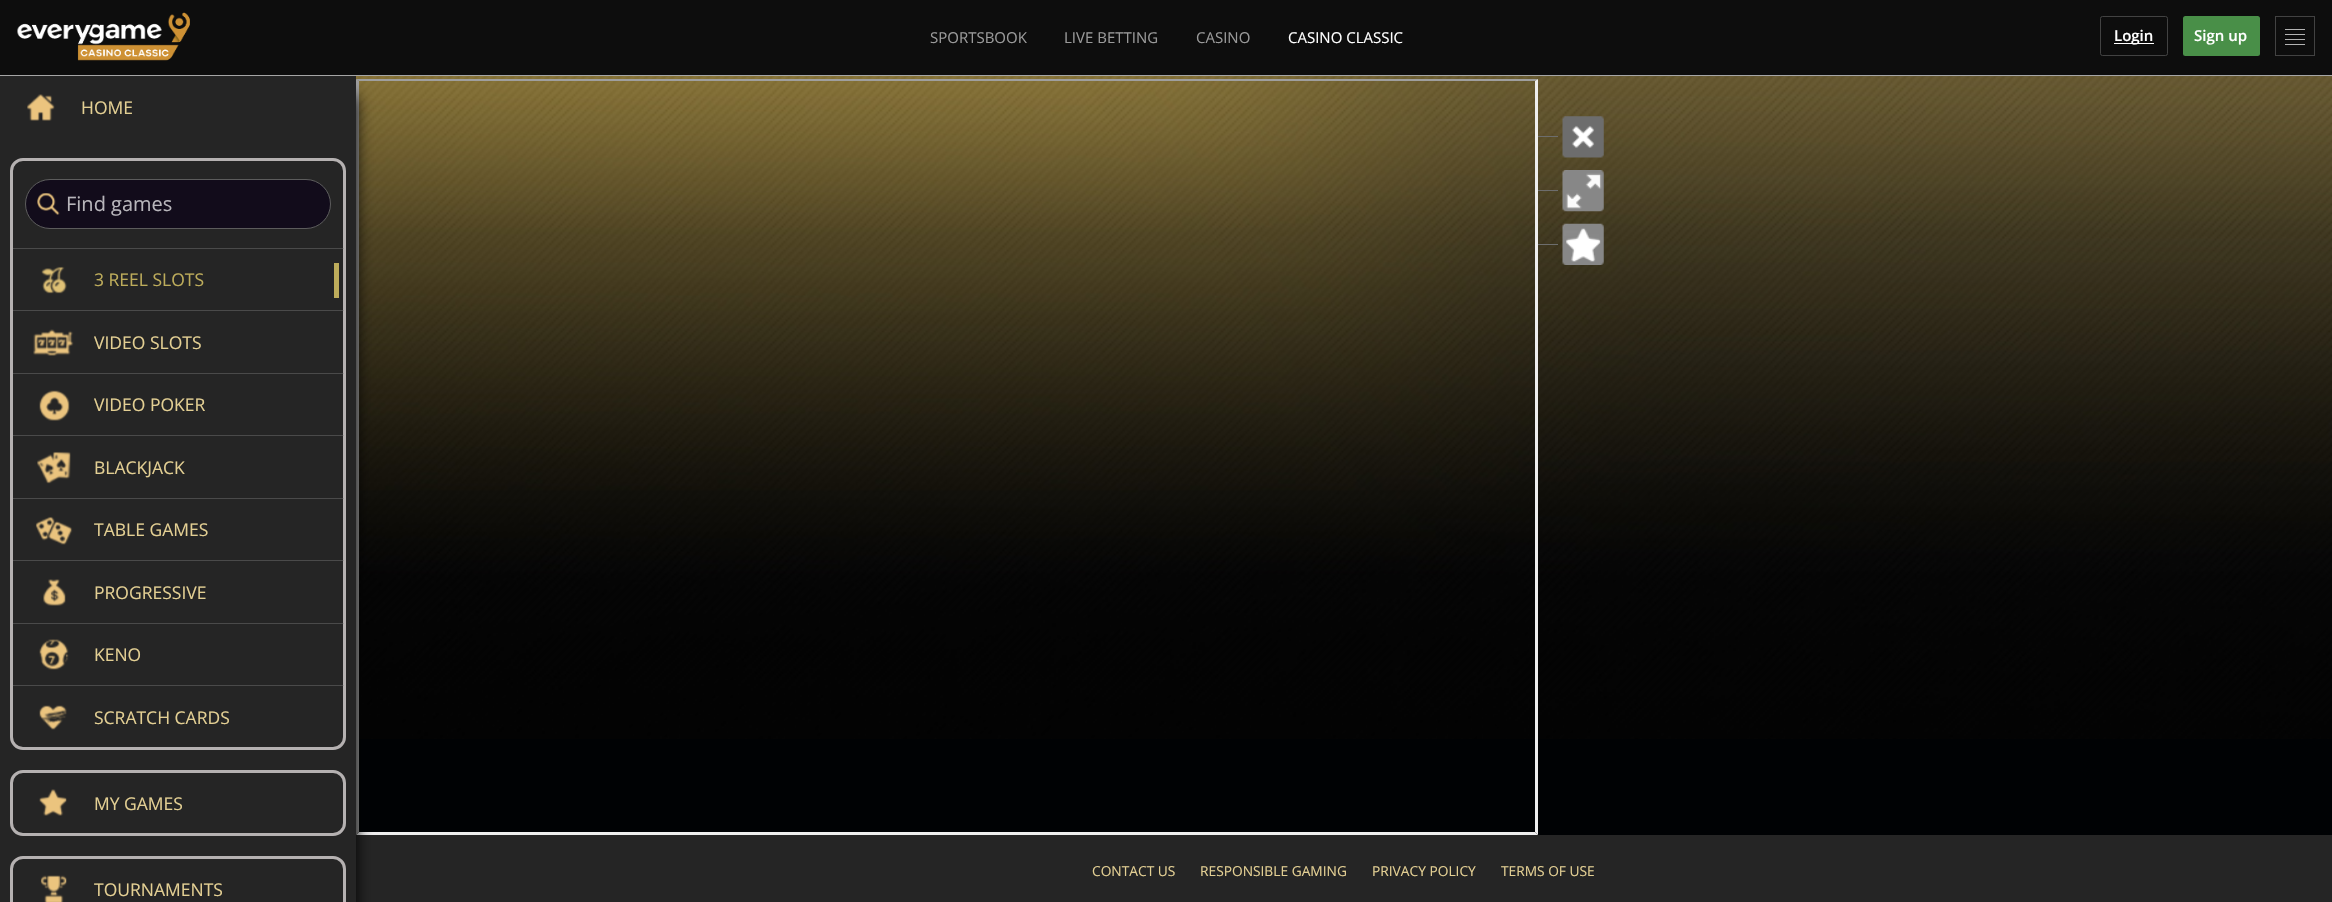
void draw(SkCanvas* canvas) {
	SkPaint paint;
	paint.setAntiAlias(true);
	auto svgPath = [&](const char* data, bool evenOdd = false) {
		SkPath result = *SkParsePath::FromSVGString(data);
		if (evenOdd) result.setFillType(SkPathFillType::kEvenOdd);
		return result;
	};
	canvas->clear(0xff000204);
	canvas->drawImageRect(SkImages::DeferredFromEncodedData(SkData::MakeFromFileName("img1.png")), SkRect::MakeXYWH(356, 76, 1976, 663), SkSamplingOptions());
	paint.setColor(0xff0d0d0d);
	canvas->drawRect(SkRect::MakeXYWH(0, 0, 2332, 75), paint);
	canvas->drawImageRect(SkImages::DeferredFromEncodedData(SkData::MakeFromFileName("img2.png")), SkRect::MakeXYWH(17, 12, 173, 49), SkSamplingOptions());
	SkFont f1(fontMgr->matchFamilyStyle("Open Sans", SkFontStyle::Normal()), 15);
	f1.setSubpixel(true);
	paint.setColor(0xff999999);
	canvas->drawString("SPORTSBOOK", 930, 43, f1, paint);
	canvas->drawString("LIVE BETTING", 1064, 43, f1, paint);
	canvas->drawString("CASINO", 1196, 43, f1, paint);
	paint.setColor(0xffffffff);
	canvas->drawString("CASINO CLASSIC", 1288, 43, f1, paint);
	paint.setStroke(true);
	paint.setStrokeWidth(1);
	paint.setColor(0xff424242);
	canvas->drawRoundRect(SkRect::MakeXYWH(2100.5, 16.5, 67, 39), 2, 2, paint);
	paint.setStroke(false);
	paint.setColor(0xffffffff);
	canvas->drawRect(SkRect::MakeXYWH(2114, 43, 40, 1), paint);
	SkFont f2(fontMgr->matchFamilyStyle("Open Sans", SkFontStyle(600, SkFontStyle::kNormal_Width, SkFontStyle::kUpright_Slant)), 15);
	f2.setSubpixel(true);
	canvas->drawString("Login", 2114, 41, f2, paint);
	paint.setColor(0xff498f48);
	canvas->drawRoundRect(SkRect::MakeXYWH(2183, 16, 77, 40), 2.5, 2.5, paint);
	paint.setColor(0xffffffff);
	canvas->drawString("Sign up", 2194, 41, f2, paint);
	paint.setStroke(true);
	paint.setColor(0xff424242);
	canvas->drawRect(SkRect::MakeXYWH(2275.5, 16.5, 39, 39), paint);
	paint.setStroke(false);
	paint.setColor(0xffb3b3b3);
	canvas->drawRect(SkRect::MakeXYWH(2285, 29, 20, 1), paint);
	canvas->drawRect(SkRect::MakeXYWH(2285, 34, 20, 1), paint);
	canvas->drawRect(SkRect::MakeXYWH(2285, 39, 20, 1), paint);
	canvas->drawRect(SkRect::MakeXYWH(2285, 44, 20, 1), paint);
	paint.setColor(0xffa6a6a6);
	canvas->drawRect(SkRect::MakeXYWH(0, 75, 2332, 1), paint);
	paint.setColor(0xff9f9f9f);
	canvas->drawPath(svgPath("M356 79H1538L1535 81H359Z"), paint);
	paint.setColor(0xffeeeeee);
	canvas->drawPath(svgPath("M1538 79V835L1535 832V81Z"), paint);
	canvas->drawPath(svgPath("M1538 835H356L359 832H1535Z"), paint);
	paint.setColor(0xff9f9f9f);
	canvas->drawPath(svgPath("M356 835V79L359 81V832Z"), paint);
	paint.setColor(0xff252525);
	canvas->drawRect(SkRect::MakeXYWH(356, 835, 1976, 67), paint);
	paint.setColor(0xff000000);
	paint.setMaskFilter(SkMaskFilter::MakeBlur(kNormal_SkBlurStyle, 7.5));
	canvas->drawRect(SkRect::MakeXYWH(0, 96, 356, 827), paint);
	paint.setMaskFilter(nullptr);
	paint.setColor(0xff252525);
	canvas->drawRect(SkRect::MakeXYWH(0, 76, 356, 826), paint);
	canvas->drawImageRect(SkImages::DeferredFromEncodedData(SkData::MakeFromFileName("img3.png")), SkRect::MakeXYWH(27, 94, 28, 27), SkSamplingOptions());
	SkFont f3(fontMgr->matchFamilyStyle("Open Sans", SkFontStyle::Normal()), 17.5);
	f3.setSubpixel(true);
	paint.setColor(0xffe3cf93);
	canvas->drawString("HOME", 81, 114, f3, paint);
	paint.setStroke(true);
	paint.setStrokeWidth(3);
	paint.setColor(0xffb5b1b1);
	canvas->drawRoundRect(SkRect::MakeXYWH(11.5, 159.5, 333, 589), 11.5, 11.5, paint);
	paint.setStroke(false);
	paint.setColor(0x667f7f7f);
	canvas->drawRect(SkRect::MakeXYWH(13, 248, 331, 1), paint);
	paint.setColor(0xff120c1b);
	canvas->drawRoundRect(SkRect::MakeXYWH(25.5, 179.5, 305, 49), 24.5, 24.5, paint);
	paint.setStroke(true);
	paint.setStrokeWidth(1);
	paint.setColor(0xff5c5c5c);
	canvas->drawRoundRect(SkRect::MakeXYWH(25.5, 179.5, 305, 49), 24.5, 24.5, paint);
	canvas->drawImageRect(SkImages::DeferredFromEncodedData(SkData::MakeFromFileName("img4.png")), SkRect::MakeXYWH(37, 193, 23, 22), SkSamplingOptions());
	SkFont f4(fontMgr->matchFamilyStyle("Open Sans", SkFontStyle::Normal()), 20);
	f4.setSubpixel(true);
	paint.setStroke(false);
	paint.setColor(0xffb8b6bb);
	canvas->drawString("Find games", 66, 211, f4, paint);
	paint.setColor(0x667f7f7f);
	canvas->drawRect(SkRect::MakeXYWH(13, 310, 331, 1), paint);
	canvas->drawImageRect(SkImages::DeferredFromEncodedData(SkData::MakeFromFileName("img5.png")), SkRect::MakeXYWH(41, 266, 26, 28), SkSamplingOptions());
	paint.setColor(0xffbdac5b);
	canvas->drawString("3 REEL SLOTS", 94, 286, f3, paint);
	canvas->drawRect(SkRect::MakeXYWH(334, 263, 5, 35), paint);
	paint.setColor(0x667f7f7f);
	canvas->drawRect(SkRect::MakeXYWH(13, 373, 331, 1), paint);
	canvas->drawImageRect(SkImages::DeferredFromEncodedData(SkData::MakeFromFileName("img6.png")), SkRect::MakeXYWH(33, 329, 41, 27), SkSamplingOptions());
	paint.setColor(0xffe3cf93);
	canvas->drawString("VIDEO SLOTS", 94, 349, f3, paint);
	paint.setColor(0x667f7f7f);
	canvas->drawRect(SkRect::MakeXYWH(13, 435, 331, 1), paint);
	canvas->drawImageRect(SkImages::DeferredFromEncodedData(SkData::MakeFromFileName("img7.png")), SkRect::MakeXYWH(39, 390, 31, 31), SkSamplingOptions());
	paint.setColor(0xffe3cf93);
	canvas->drawString("VIDEO POKER", 94, 411, f3, paint);
	paint.setColor(0x667f7f7f);
	canvas->drawRect(SkRect::MakeXYWH(13, 498, 331, 1), paint);
	canvas->drawImageRect(SkImages::DeferredFromEncodedData(SkData::MakeFromFileName("img8.png")), SkRect::MakeXYWH(37, 451, 34, 33), SkSamplingOptions());
	paint.setColor(0xffe3cf93);
	canvas->drawString("BLACKJACK", 94, 474, f3, paint);
	paint.setColor(0x667f7f7f);
	canvas->drawRect(SkRect::MakeXYWH(13, 560, 331, 1), paint);
	canvas->drawImageRect(SkImages::DeferredFromEncodedData(SkData::MakeFromFileName("img9.png")), SkRect::MakeXYWH(35, 516, 38, 29), SkSamplingOptions());
	paint.setColor(0xffe3cf93);
	canvas->drawString("TABLE GAMES", 94, 536, f3, paint);
	paint.setColor(0x667f7f7f);
	canvas->drawRect(SkRect::MakeXYWH(13, 623, 331, 1), paint);
	canvas->drawImageRect(SkImages::DeferredFromEncodedData(SkData::MakeFromFileName("img10.png")), SkRect::MakeXYWH(43, 579, 23, 27), SkSamplingOptions());
	paint.setColor(0xffe3cf93);
	canvas->drawString("PROGRESSIVE", 94, 599, f3, paint);
	paint.setColor(0x667f7f7f);
	canvas->drawRect(SkRect::MakeXYWH(13, 685, 331, 1), paint);
	canvas->drawImageRect(SkImages::DeferredFromEncodedData(SkData::MakeFromFileName("img11.png")), SkRect::MakeXYWH(39, 639, 30, 31), SkSamplingOptions());
	paint.setColor(0xffe3cf93);
	canvas->drawString("KENO", 94, 661, f3, paint);
	canvas->drawImageRect(SkImages::DeferredFromEncodedData(SkData::MakeFromFileName("img12.png")), SkRect::MakeXYWH(39, 705, 28, 25), SkSamplingOptions());
	canvas->drawString("SCRATCH CARDS", 94, 724, f3, paint);
	paint.setStroke(true);
	paint.setStrokeWidth(3);
	paint.setColor(0xffb5b1b1);
	canvas->drawRoundRect(SkRect::MakeXYWH(11.5, 771.5, 333, 63), 11.5, 11.5, paint);
	canvas->drawImageRect(SkImages::DeferredFromEncodedData(SkData::MakeFromFileName("img13.png")), SkRect::MakeXYWH(39, 789, 28, 27), SkSamplingOptions());
	paint.setStroke(false);
	paint.setColor(0xffe3cf93);
	canvas->drawString("MY GAMES", 94, 810, f3, paint);
	paint.setStroke(true);
	paint.setColor(0xffb5b1b1);
	canvas->drawRoundRect(SkRect::MakeXYWH(11.5, 857.5, 333, 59), 11.5, 11.5, paint);
	canvas->drawImageRect(SkImages::DeferredFromEncodedData(SkData::MakeFromFileName("img14.png")), SkRect::MakeXYWH(40, 875, 27, 27), SkSamplingOptions());
	paint.setStroke(false);
	paint.setColor(0xffe3cf93);
	canvas->drawString("TOURNAMENTS", 94, 896, f3, paint);
	paint.setColor(0xff6d6d6d);
	canvas->drawRect(SkRect::MakeXYWH(1538, 136, 20, 1), paint);
	canvas->drawImageRect(SkImages::DeferredFromEncodedData(SkData::MakeFromFileName("img15.png")), SkRect::MakeXYWH(1562, 116, 42, 42), SkSamplingOptions());
	canvas->drawRect(SkRect::MakeXYWH(1538, 190, 20, 1), paint);
	canvas->drawImageRect(SkImages::DeferredFromEncodedData(SkData::MakeFromFileName("img16.png")), SkRect::MakeXYWH(1562, 170, 42, 42), SkSamplingOptions());
	canvas->drawRect(SkRect::MakeXYWH(1538, 244, 20, 1), paint);
	canvas->drawImageRect(SkImages::DeferredFromEncodedData(SkData::MakeFromFileName("img17.png")), SkRect::MakeXYWH(1562, 223, 42, 42), SkSamplingOptions());
	SkFont f5(fontMgr->matchFamilyStyle("Open Sans", SkFontStyle::Normal()), 13.75);
	f5.setSubpixel(true);
	paint.setColor(0xffe3cf93);
	canvas->drawString("CONTACT US", 1092, 876, f5, paint);
	canvas->drawString("RESPONSIBLE GAMING", 1200, 876, f5, paint);
	canvas->drawString("PRIVACY POLICY", 1372, 876, f5, paint);
	canvas->drawString("TERMS OF USE", 1501, 876, f5, paint);
}
